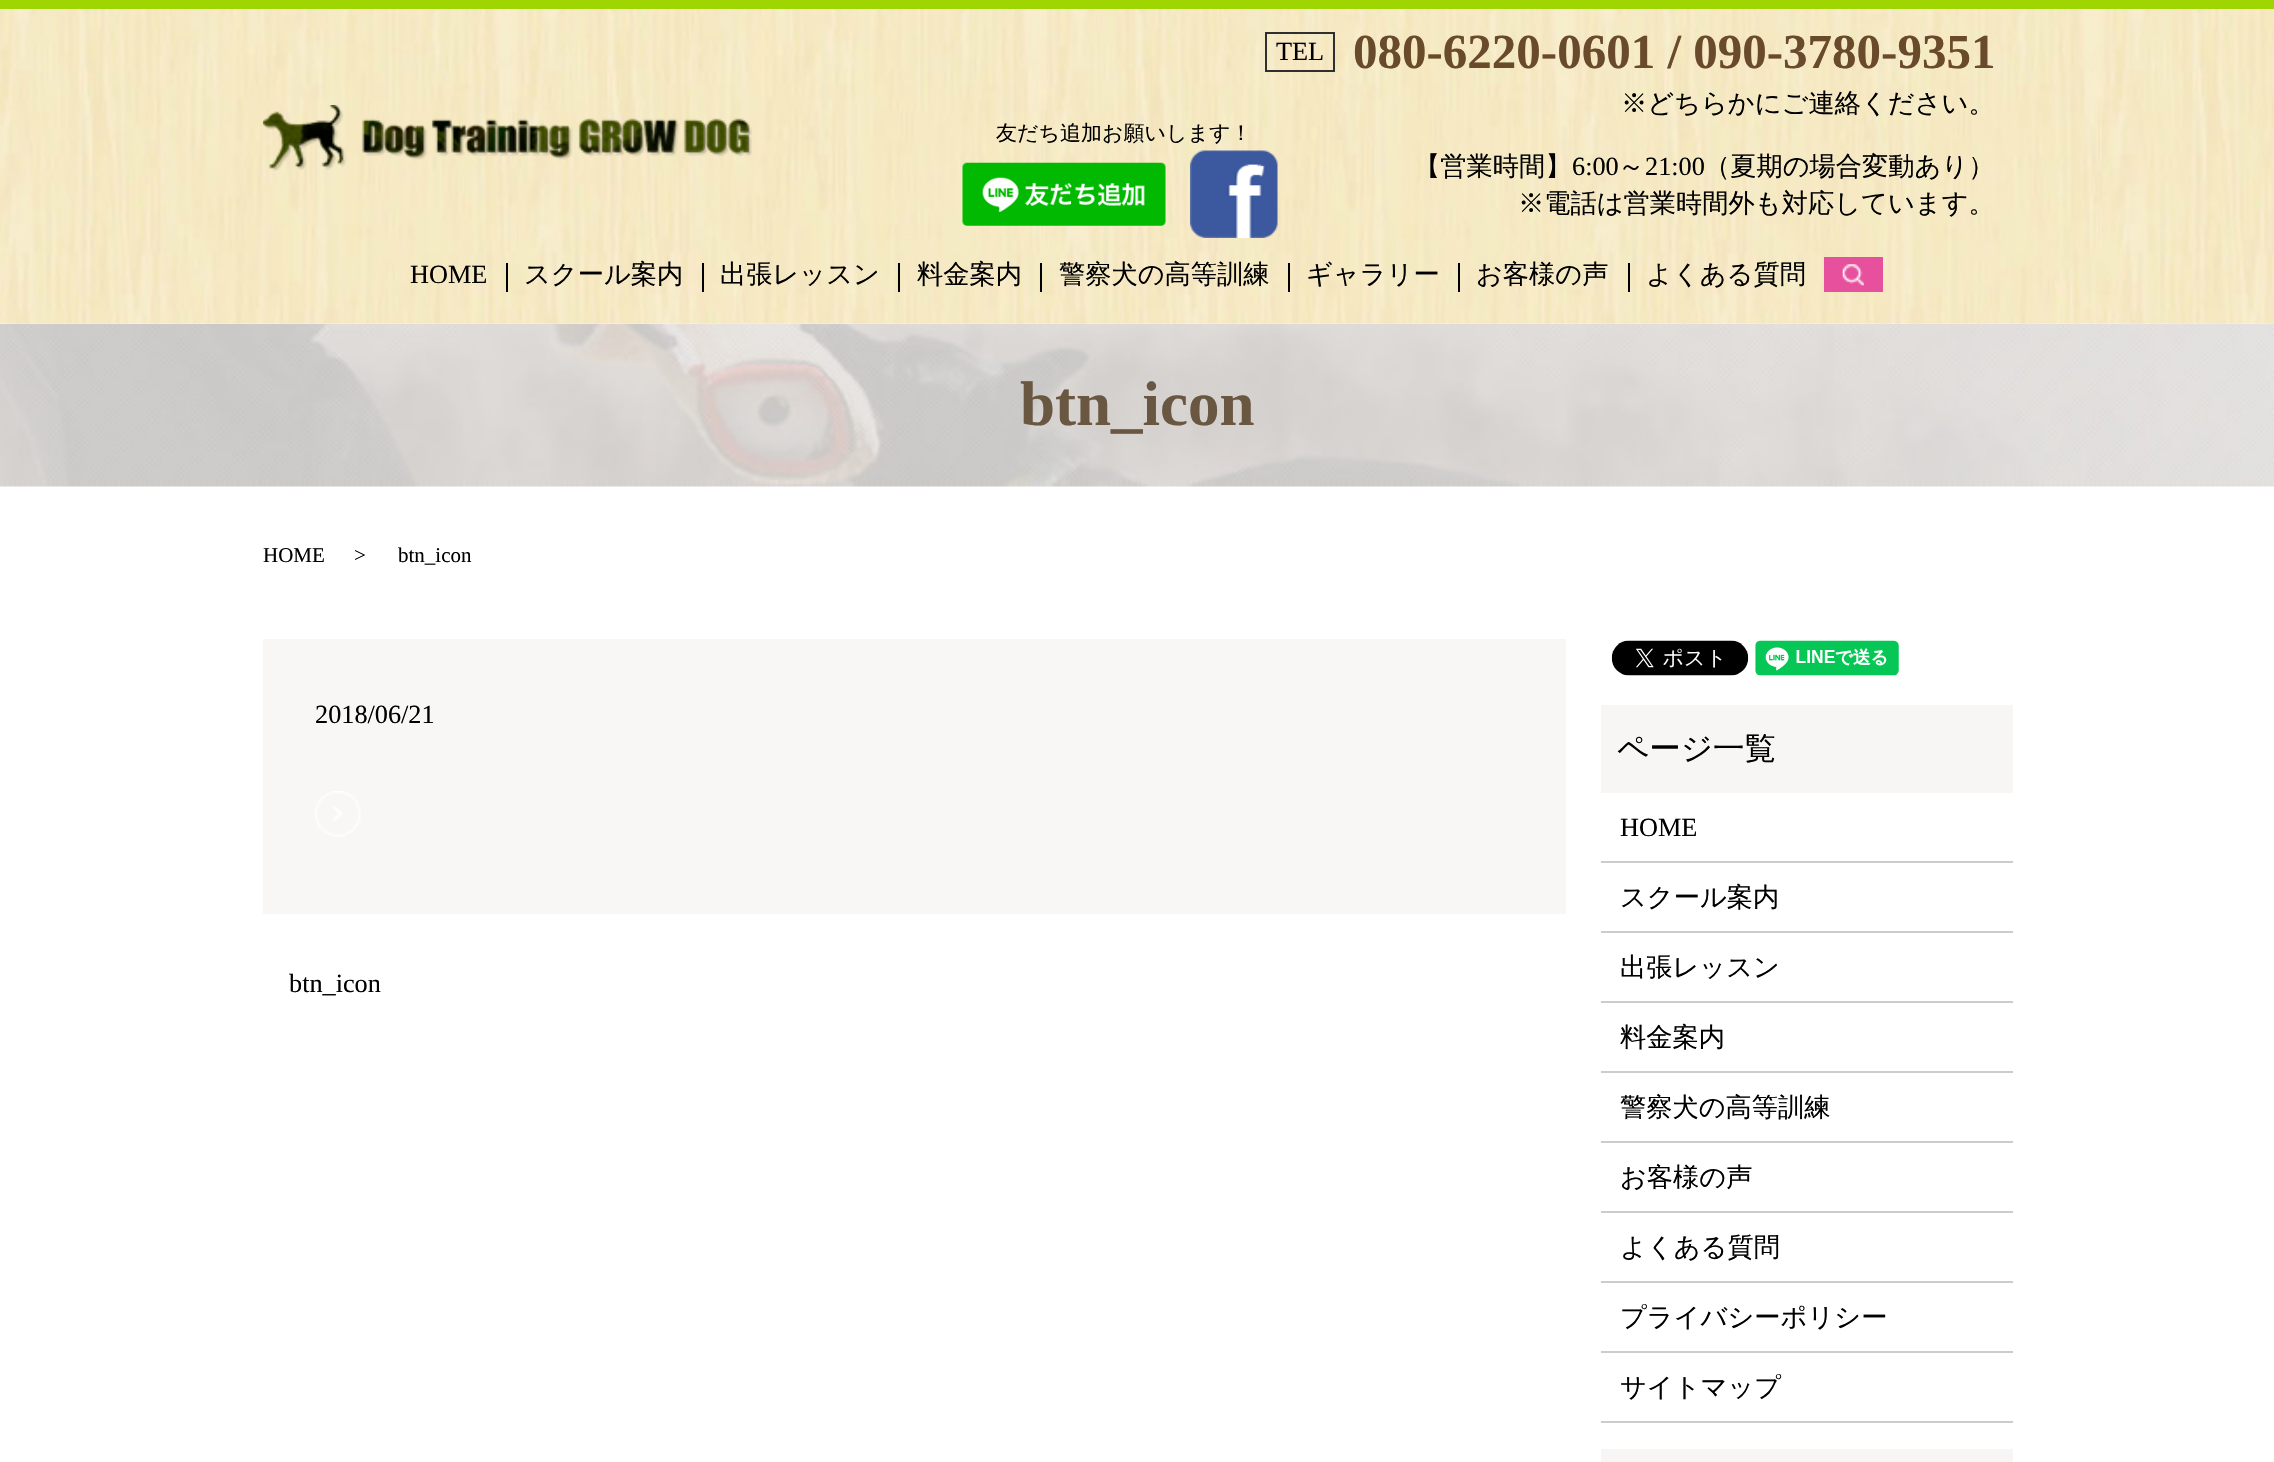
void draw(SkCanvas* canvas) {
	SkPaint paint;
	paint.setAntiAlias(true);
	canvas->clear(0xffffffff);
	canvas->drawImageRect(SkImages::DeferredFromEncodedData(SkData::MakeFromFileName("img1.png")), SkRect::MakeXYWH(0, 9, 2274, 315), SkSamplingOptions());
	paint.setColor(0xff9fd500);
	canvas->drawRect(SkRect::MakeXYWH(0, 0, 2274, 9), paint);
	canvas->drawImageRect(SkImages::DeferredFromEncodedData(SkData::MakeFromFileName("img2.png")), SkRect::MakeXYWH(262, 105, 490, 66), SkSamplingOptions());
	SkFont f1(fontMgr->matchFamilyStyle("WenQuanYi Zen Hei", SkFontStyle(500, SkFontStyle::kNormal_Width, SkFontStyle::kUpright_Slant)), 21);
	f1.setSubpixel(true);
	paint.setColor(0xff000000);
	canvas->drawString("友だち追加お願いします！", 996, 140, f1, paint);
	canvas->drawImageRect(SkImages::DeferredFromEncodedData(SkData::MakeFromFileName("img3.png")), SkRect::MakeXYWH(962, 162, 204, 64), SkSamplingOptions());
	canvas->drawImageRect(SkImages::DeferredFromEncodedData(SkData::MakeFromFileName("img4.png")), SkRect::MakeXYWH(1190, 150, 88, 88), SkSamplingOptions());
	paint.setStroke(true);
	paint.setStrokeWidth(2);
	paint.setColor(0xff2f2f2f);
	canvas->drawRect(SkRect::MakeXYWH(1266, 33, 68, 38), paint);
	SkFont f2(fontMgr->matchFamilyStyle("Liberation Serif", SkFontStyle::Normal()), 26.25);
	f2.setSubpixel(true);
	paint.setStroke(false);
	paint.setColor(0xff000000);
	canvas->drawString("TEL", 1276, 60, f2, paint);
	SkFont f3(fontMgr->matchFamilyStyle("Liberation Serif", SkFontStyle::Bold()), 49);
	f3.setSubpixel(true);
	paint.setColor(0xff694a2a);
	canvas->drawString("080-6220-0601 / 090-3780-9351", 1353, 68, f3, paint);
	SkFont f4(fontMgr->matchFamilyStyle("WenQuanYi Zen Hei", SkFontStyle(500, SkFontStyle::kNormal_Width, SkFontStyle::kUpright_Slant)), 26.25);
	f4.setSubpixel(true);
	paint.setColor(0xff000000);
	canvas->drawString("※どちらかにご連絡ください。", 1621, 112, f4, paint);
	canvas->drawString("【営業時間】", 1414, 175, f4, paint);
	canvas->drawString("6:00", 1572, 175, f2, paint);
	canvas->drawString("～", 1618, 175, f4, paint);
	canvas->drawString("21:00", 1645, 175, f2, paint);
	canvas->drawString("（夏期の場合変動あり）", 1704, 175, f4, paint);
	canvas->drawString("※電話は営業時間外も対応しています。", 1518, 212, f4, paint);
	canvas->drawString("HOME", 410, 283, f2, paint);
	canvas->drawRect(SkRect::MakeXYWH(506, 263, 2, 29), paint);
	canvas->drawString("スクール案内", 524, 283, f4, paint);
	canvas->drawRect(SkRect::MakeXYWH(702, 263, 2, 29), paint);
	canvas->drawString("出張レッスン", 720, 283, f4, paint);
	canvas->drawRect(SkRect::MakeXYWH(898, 263, 2, 29), paint);
	canvas->drawString("料金案内", 917, 283, f4, paint);
	canvas->drawRect(SkRect::MakeXYWH(1040, 263, 2, 29), paint);
	canvas->drawString("警察犬の高等訓練", 1059, 283, f4, paint);
	canvas->drawRect(SkRect::MakeXYWH(1288, 263, 2, 29), paint);
	canvas->drawString("ギャラリー", 1306, 283, f4, paint);
	canvas->drawRect(SkRect::MakeXYWH(1458, 263, 2, 29), paint);
	canvas->drawString("お客様の声", 1476, 283, f4, paint);
	canvas->drawRect(SkRect::MakeXYWH(1628, 263, 2, 29), paint);
	canvas->drawString("よくある質問", 1646, 283, f4, paint);
	paint.setColor(0xffe6509c);
	canvas->drawRect(SkRect::MakeXYWH(1824, 257, 59, 35), paint);
	canvas->drawImageRect(SkImages::DeferredFromEncodedData(SkData::MakeFromFileName("img5.png")), SkRect::MakeXYWH(1842, 264, 22, 22), SkSamplingOptions());
	canvas->drawImageRect(SkImages::DeferredFromEncodedData(SkData::MakeFromFileName("img6.png")), SkRect::MakeXYWH(0, 324, 2274, 163), SkSamplingOptions());
	SkFont f5(fontMgr->matchFamilyStyle("Liberation Serif", SkFontStyle::Bold()), 63);
	f5.setSubpixel(true);
	paint.setColor(0xff695742);
	canvas->drawString("btn_icon", 1020, 425, f5, paint);
	SkFont f6(fontMgr->matchFamilyStyle("Liberation Serif", SkFontStyle::Normal()), 21);
	f6.setSubpixel(true);
	paint.setColor(0xff000000);
	canvas->drawString("HOME", 263, 562, f6, paint);
	canvas->drawString(">", 354, 562, f6, paint);
	canvas->drawString("btn_icon", 398, 562, f6, paint);
	paint.setColor(0xfff8f7f5);
	canvas->drawRect(SkRect::MakeXYWH(263, 639, 1303, 275), paint);
	paint.setColor(0xff000000);
	canvas->drawString("2018/06/21", 315, 723, f2, paint);
	canvas->drawImageRect(SkImages::DeferredFromEncodedData(SkData::MakeFromFileName("img7.png")), SkRect::MakeXYWH(315, 791, 46, 46), SkSamplingOptions());
	canvas->drawString("btn_icon", 289, 992, f2, paint);
	canvas->drawImageRect(SkImages::DeferredFromEncodedData(SkData::MakeFromFileName("img8.png")), SkRect::MakeXYWH(1611, 640, 138, 36), SkSamplingOptions());
	canvas->drawImageRect(SkImages::DeferredFromEncodedData(SkData::MakeFromFileName("img9.png")), SkRect::MakeXYWH(1755, 640, 144, 36), SkSamplingOptions());
	paint.setColor(0xfff8f6f4);
	canvas->drawRect(SkRect::MakeXYWH(1601, 705, 412, 88), paint);
	SkFont f7(fontMgr->matchFamilyStyle("WenQuanYi Zen Hei", SkFontStyle(500, SkFontStyle::kNormal_Width, SkFontStyle::kUpright_Slant)), 31.5);
	f7.setSubpixel(true);
	paint.setColor(0xff000000);
	canvas->drawString("ページ一覧", 1617, 759, f7, paint);
	paint.setColor(0xffcccccc);
	canvas->drawRect(SkRect::MakeXYWH(1601, 861, 412, 2), paint);
	paint.setColor(0xff000000);
	canvas->drawString("HOME", 1620, 836, f2, paint);
	paint.setColor(0xffcccccc);
	canvas->drawRect(SkRect::MakeXYWH(1601, 931, 412, 2), paint);
	paint.setColor(0xff000000);
	canvas->drawString("スクール案内", 1620, 906, f4, paint);
	paint.setColor(0xffcccccc);
	canvas->drawRect(SkRect::MakeXYWH(1601, 1001, 412, 2), paint);
	paint.setColor(0xff000000);
	canvas->drawString("出張レッスン", 1620, 976, f4, paint);
	paint.setColor(0xffcccccc);
	canvas->drawRect(SkRect::MakeXYWH(1601, 1071, 412, 2), paint);
	paint.setColor(0xff000000);
	canvas->drawString("料金案内", 1620, 1046, f4, paint);
	paint.setColor(0xffcccccc);
	canvas->drawRect(SkRect::MakeXYWH(1601, 1141, 412, 2), paint);
	paint.setColor(0xff000000);
	canvas->drawString("警察犬の高等訓練", 1620, 1116, f4, paint);
	paint.setColor(0xffcccccc);
	canvas->drawRect(SkRect::MakeXYWH(1601, 1211, 412, 2), paint);
	paint.setColor(0xff000000);
	canvas->drawString("お客様の声", 1620, 1186, f4, paint);
	paint.setColor(0xffcccccc);
	canvas->drawRect(SkRect::MakeXYWH(1601, 1281, 412, 2), paint);
	paint.setColor(0xff000000);
	canvas->drawString("よくある質問", 1620, 1256, f4, paint);
	paint.setColor(0xffcccccc);
	canvas->drawRect(SkRect::MakeXYWH(1601, 1351, 412, 2), paint);
	paint.setColor(0xff000000);
	canvas->drawString("プライバシーポリシー", 1620, 1326, f4, paint);
	paint.setColor(0xffcccccc);
	canvas->drawRect(SkRect::MakeXYWH(1601, 1421, 412, 2), paint);
	paint.setColor(0xff000000);
	canvas->drawString("サイトマップ", 1620, 1396, f4, paint);
	paint.setColor(0xfff8f6f4);
	canvas->drawRect(SkRect::MakeXYWH(1601, 1449, 412, 13), paint);
}
